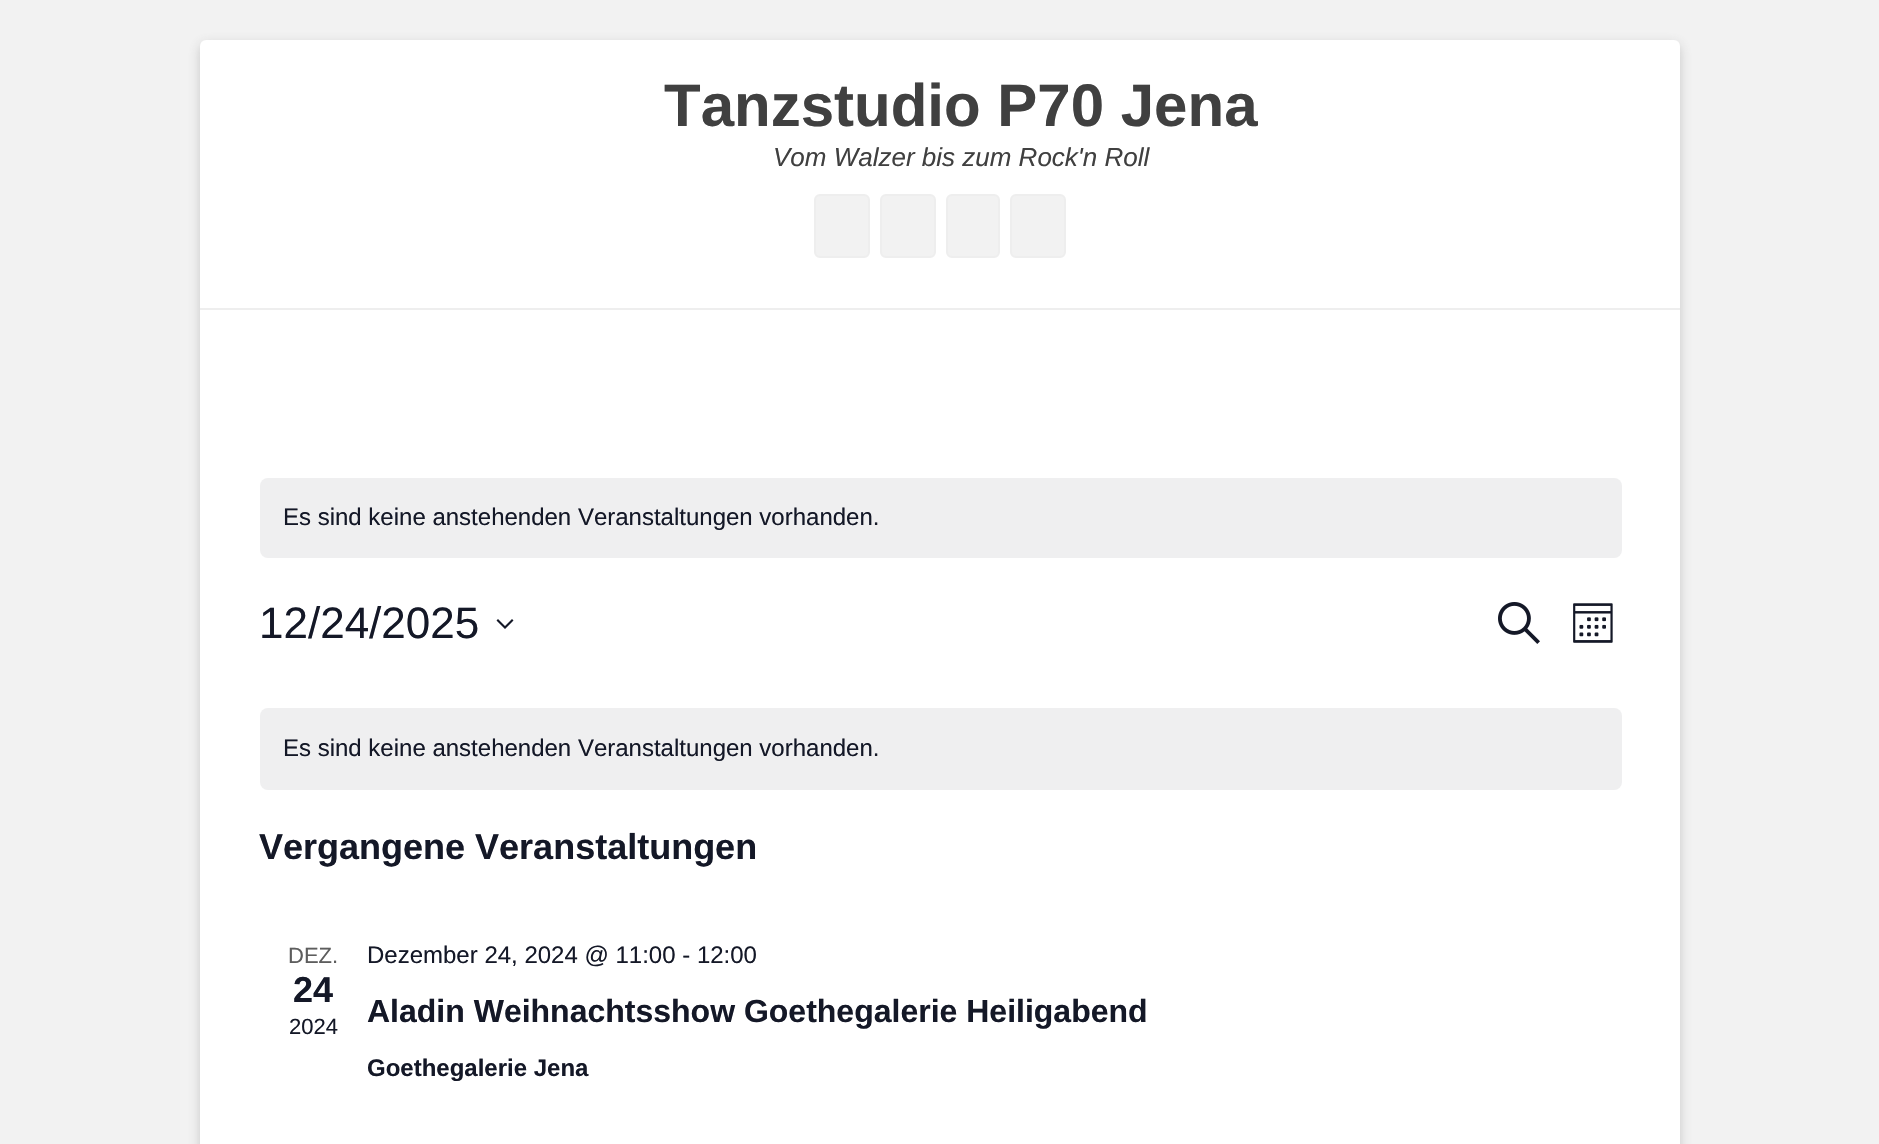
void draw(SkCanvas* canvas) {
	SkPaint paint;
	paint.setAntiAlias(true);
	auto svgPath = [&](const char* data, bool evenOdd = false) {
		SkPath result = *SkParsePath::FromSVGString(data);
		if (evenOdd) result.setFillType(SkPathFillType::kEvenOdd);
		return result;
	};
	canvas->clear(0xfff2f2f2);
	paint.setColor(0x4d646464);
	paint.setMaskFilter(SkMaskFilter::MakeBlur(kNormal_SkBlurStyle, 6));
	canvas->drawRoundRect(SkRect::MakeXYWH(200, 44, 1480, 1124), 6, 6, paint);
	paint.setMaskFilter(nullptr);
	paint.setColor(0xffffffff);
	canvas->drawRoundRect(SkRect::MakeXYWH(200, 40, 1480, 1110), 6, 6, paint);
	SkFont f1(fontMgr->matchFamilyStyle("Liberation Sans", SkFontStyle::Bold()), 60);
	f1.setSubpixel(true);
	paint.setColor(0xff404040);
	canvas->drawString("Tanzstudio P70 Jena", 664, 126, f1, paint);
	SkFont f2(fontMgr->matchFamilyStyle("Liberation Sans", SkFontStyle::Italic()), 26);
	f2.setSubpixel(true);
	canvas->drawString("Vom Walzer bis zum Rock'n Roll", 773, 166, f2, paint);
	paint.setColor(0xfff2f2f2);
	canvas->drawRoundRect(SkRect::MakeXYWH(815, 195, 54, 62), 5, 5, paint);
	paint.setStroke(true);
	paint.setStrokeWidth(2);
	paint.setColor(0xffeeeeee);
	canvas->drawRoundRect(SkRect::MakeXYWH(815, 195, 54, 62), 5, 5, paint);
	paint.setStroke(false);
	paint.setColor(0xfff2f2f2);
	canvas->drawRoundRect(SkRect::MakeXYWH(881, 195, 54, 62), 5, 5, paint);
	paint.setStroke(true);
	paint.setColor(0xffeeeeee);
	canvas->drawRoundRect(SkRect::MakeXYWH(881, 195, 54, 62), 5, 5, paint);
	paint.setStroke(false);
	paint.setColor(0xfff2f2f2);
	canvas->drawRoundRect(SkRect::MakeXYWH(947, 195, 52, 62), 5, 5, paint);
	paint.setStroke(true);
	paint.setColor(0xffeeeeee);
	canvas->drawRoundRect(SkRect::MakeXYWH(947, 195, 52, 62), 5, 5, paint);
	paint.setStroke(false);
	paint.setColor(0xfff2f2f2);
	canvas->drawRoundRect(SkRect::MakeXYWH(1011, 195, 54, 62), 5, 5, paint);
	paint.setStroke(true);
	paint.setColor(0xffeeeeee);
	canvas->drawRoundRect(SkRect::MakeXYWH(1011, 195, 54, 62), 5, 5, paint);
	paint.setStroke(false);
	canvas->drawRect(SkRect::MakeXYWH(200, 308, 1480, 2), paint);
	paint.setColor(0xffefeff0);
	canvas->drawRoundRect(SkRect::MakeXYWH(260, 478, 1362, 80), 8, 8, paint);
	SkFont f3(fontMgr->matchFamilyStyle("Liberation Sans", SkFontStyle::Normal()), 24);
	f3.setSubpixel(true);
	paint.setColor(0xff141827);
	canvas->drawString("Es sind keine anstehenden Veranstaltungen vorhanden.", 283, 525, f3, paint);
	SkFont f4(fontMgr->matchFamilyStyle("Liberation Sans", SkFontStyle::Normal()), 44);
	f4.setSubpixel(true);
	canvas->drawString("12/24/2025", 259, 638, f4, paint);
	canvas->drawPath(svgPath("M498 619L505 626L512 619L513.5 620.5L505 629L496.5 620.5Z", true), paint);
	canvas->drawImageRect(SkImages::DeferredFromEncodedData(SkData::MakeFromFileName("img1.png")), SkRect::MakeXYWH(1498, 602, 42, 42), SkSamplingOptions());
	canvas->drawImageRect(SkImages::DeferredFromEncodedData(SkData::MakeFromFileName("img2.png")), SkRect::MakeXYWH(1573, 603, 40, 40), SkSamplingOptions());
	paint.setColor(0xffefeff0);
	canvas->drawRoundRect(SkRect::MakeXYWH(260, 708, 1362, 82), 8, 8, paint);
	paint.setColor(0xff141827);
	canvas->drawString("Es sind keine anstehenden Veranstaltungen vorhanden.", 283, 756, f3, paint);
	SkFont f5(fontMgr->matchFamilyStyle("Liberation Sans", SkFontStyle::Bold()), 36);
	f5.setSubpixel(true);
	canvas->drawString("Vergangene Veranstaltungen", 259, 859, f5, paint);
	SkFont f6(fontMgr->matchFamilyStyle("Liberation Sans", SkFontStyle::Normal()), 22);
	f6.setSubpixel(true);
	paint.setColor(0xff5d5d5d);
	canvas->drawString("DEZ.", 288, 963, f6, paint);
	paint.setColor(0xff141827);
	canvas->drawString("24", 293, 1002, f5, paint);
	canvas->drawString("2024", 289, 1034, f6, paint);
	canvas->drawString("Dezember 24, 2024 @ 11:00 - 12:00", 367, 963, f3, paint);
	SkFont f7(fontMgr->matchFamilyStyle("Liberation Sans", SkFontStyle::Bold()), 32);
	f7.setSubpixel(true);
	canvas->drawString("Aladin Weihnachtsshow Goethegalerie Heiligabend", 367, 1022, f7, paint);
	SkFont f8(fontMgr->matchFamilyStyle("Liberation Sans", SkFontStyle::Bold()), 24);
	f8.setSubpixel(true);
	canvas->drawString("Goethegalerie Jena", 367, 1076, f8, paint);
}
